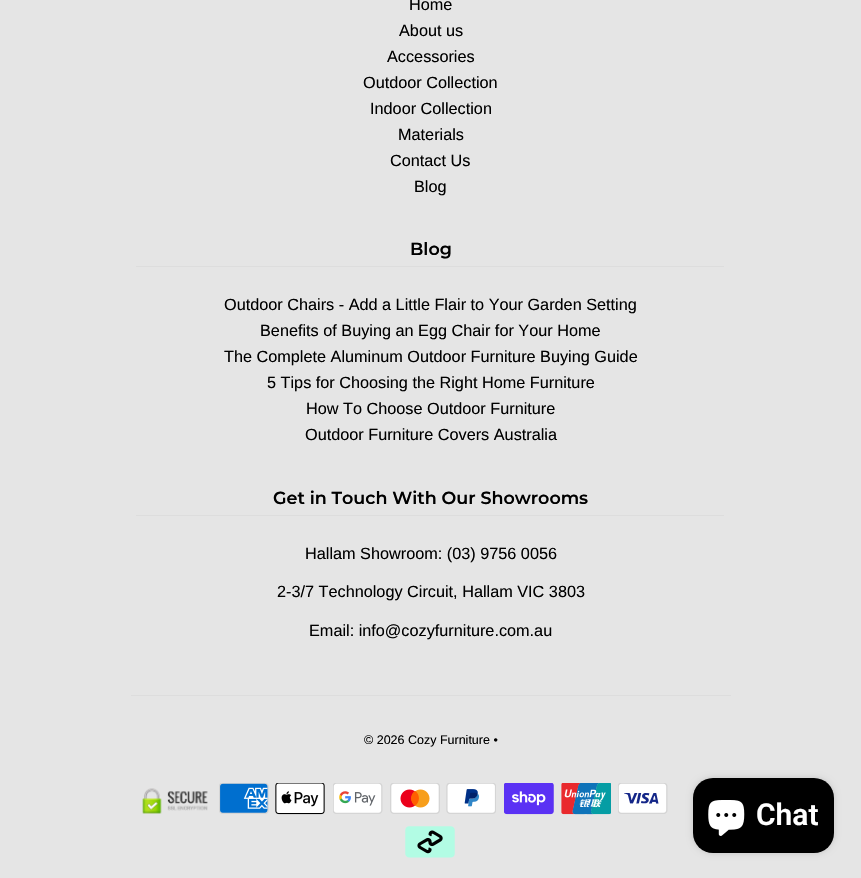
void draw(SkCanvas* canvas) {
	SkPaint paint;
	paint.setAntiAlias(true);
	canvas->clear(0xffe5e5e5);
	SkFont f1(fontMgr->matchFamilyStyle("Liberation Sans", SkFontStyle::Normal()), 16.25);
	f1.setSubpixel(true);
	paint.setColor(0xff000000);
	canvas->drawString("Home", 409, 10, f1, paint);
	canvas->drawString("About us", 399, 36, f1, paint);
	canvas->drawString("Accessories", 387, 62, f1, paint);
	canvas->drawString("Outdoor Collection", 363, 88, f1, paint);
	canvas->drawString("Indoor Collection", 370, 114, f1, paint);
	canvas->drawString("Materials", 398, 140, f1, paint);
	canvas->drawString("Contact Us", 390, 166, f1, paint);
	canvas->drawString("Blog", 414, 192, f1, paint);
	paint.setColor(0xffdddddd);
	canvas->drawRect(SkRect::MakeXYWH(136, 266, 588, 1), paint);
	SkFont f2(fontMgr->matchFamilyStyle("Montserrat", SkFontStyle(600, SkFontStyle::kNormal_Width, SkFontStyle::kUpright_Slant)), 17.5);
	f2.setSubpixel(true);
	paint.setColor(0xff000000);
	canvas->drawString("Blog", 410, 255, f2, paint);
	canvas->drawString("Outdoor Chairs - Add a Little Flair to Your Garden Setting", 224, 310, f1, paint);
	canvas->drawString("Benefits of Buying an Egg Chair for Your Home", 260, 336, f1, paint);
	canvas->drawString("The Complete Aluminum Outdoor Furniture Buying Guide", 224, 362, f1, paint);
	canvas->drawString("5 Tips for Choosing the Right Home Furniture", 267, 388, f1, paint);
	canvas->drawString("How To Choose Outdoor Furniture", 306, 414, f1, paint);
	canvas->drawString("Outdoor Furniture Covers Australia", 305, 440, f1, paint);
	paint.setColor(0xffdddddd);
	canvas->drawRect(SkRect::MakeXYWH(136, 515, 588, 1), paint);
	paint.setColor(0xff000000);
	canvas->drawString("Get in Touch With Our Showrooms", 273, 504, f2, paint);
	canvas->drawString("Hallam Showroom: (03) 9756 0056", 305, 559, f1, paint);
	canvas->drawString("2-3/7 Technology Circuit, Hallam VIC 3803", 277, 597, f1, paint);
	canvas->drawString("Email: info@cozyfurniture.com.au", 309, 636, f1, paint);
	paint.setColor(0xffdddddd);
	canvas->drawRect(SkRect::MakeXYWH(131, 695, 600, 1), paint);
	SkFont f3(fontMgr->matchFamilyStyle("Liberation Sans", SkFontStyle::Normal()), 12.5);
	f3.setSubpixel(true);
	paint.setColor(0xff000000);
	canvas->drawString("© 2026 Cozy Furniture •", 364, 744, f3, paint);
	canvas->drawImageRect(SkImages::DeferredFromEncodedData(SkData::MakeFromFileName("img1.png")), SkRect::MakeXYWH(142, 788, 66, 26), SkSamplingOptions());
	canvas->drawImageRect(SkImages::DeferredFromEncodedData(SkData::MakeFromFileName("img2.png")), SkRect::MakeXYWH(219, 783, 50, 31), SkSamplingOptions());
	canvas->drawImageRect(SkImages::DeferredFromEncodedData(SkData::MakeFromFileName("img3.png")), SkRect::MakeXYWH(275, 783, 50, 32), SkSamplingOptions());
	canvas->drawImageRect(SkImages::DeferredFromEncodedData(SkData::MakeFromFileName("img4.png")), SkRect::MakeXYWH(333, 783, 50, 31), SkSamplingOptions());
	canvas->drawImageRect(SkImages::DeferredFromEncodedData(SkData::MakeFromFileName("img5.png")), SkRect::MakeXYWH(390, 783, 50, 31), SkSamplingOptions());
	canvas->drawImageRect(SkImages::DeferredFromEncodedData(SkData::MakeFromFileName("img6.png")), SkRect::MakeXYWH(446, 783, 50, 31), SkSamplingOptions());
	canvas->drawImageRect(SkImages::DeferredFromEncodedData(SkData::MakeFromFileName("img7.png")), SkRect::MakeXYWH(504, 783, 50, 32), SkSamplingOptions());
	canvas->drawImageRect(SkImages::DeferredFromEncodedData(SkData::MakeFromFileName("img8.png")), SkRect::MakeXYWH(561, 783, 50, 32), SkSamplingOptions());
	canvas->drawImageRect(SkImages::DeferredFromEncodedData(SkData::MakeFromFileName("img9.png")), SkRect::MakeXYWH(618, 783, 50, 31), SkSamplingOptions());
	canvas->drawImageRect(SkImages::DeferredFromEncodedData(SkData::MakeFromFileName("img10.png")), SkRect::MakeXYWH(405, 826, 50, 32), SkSamplingOptions());
	paint.setColor(0x26000000);
	paint.setMaskFilter(SkMaskFilter::MakeBlur(kNormal_SkBlurStyle, 3));
	canvas->drawRoundRect(SkRect::MakeXYWH(693, 778, 141, 75), 20, 20, paint);
	paint.setMaskFilter(nullptr);
	paint.setColor(0xff000000);
	canvas->drawRoundRect(SkRect::MakeXYWH(693, 778, 141, 75), 20, 20, paint);
	canvas->drawImageRect(SkImages::DeferredFromEncodedData(SkData::MakeFromFileName("img11.png")), SkRect::MakeXYWH(708, 800, 37, 36), SkSamplingOptions());
	SkFont f4(fontMgr->matchFamilyStyle("Roboto", SkFontStyle(600, SkFontStyle::kNormal_Width, SkFontStyle::kUpright_Slant)), 30);
	f4.setSubpixel(true);
	paint.setColor(0xffffffff);
	canvas->drawString("Chat", 756, 825, f4, paint);
}
